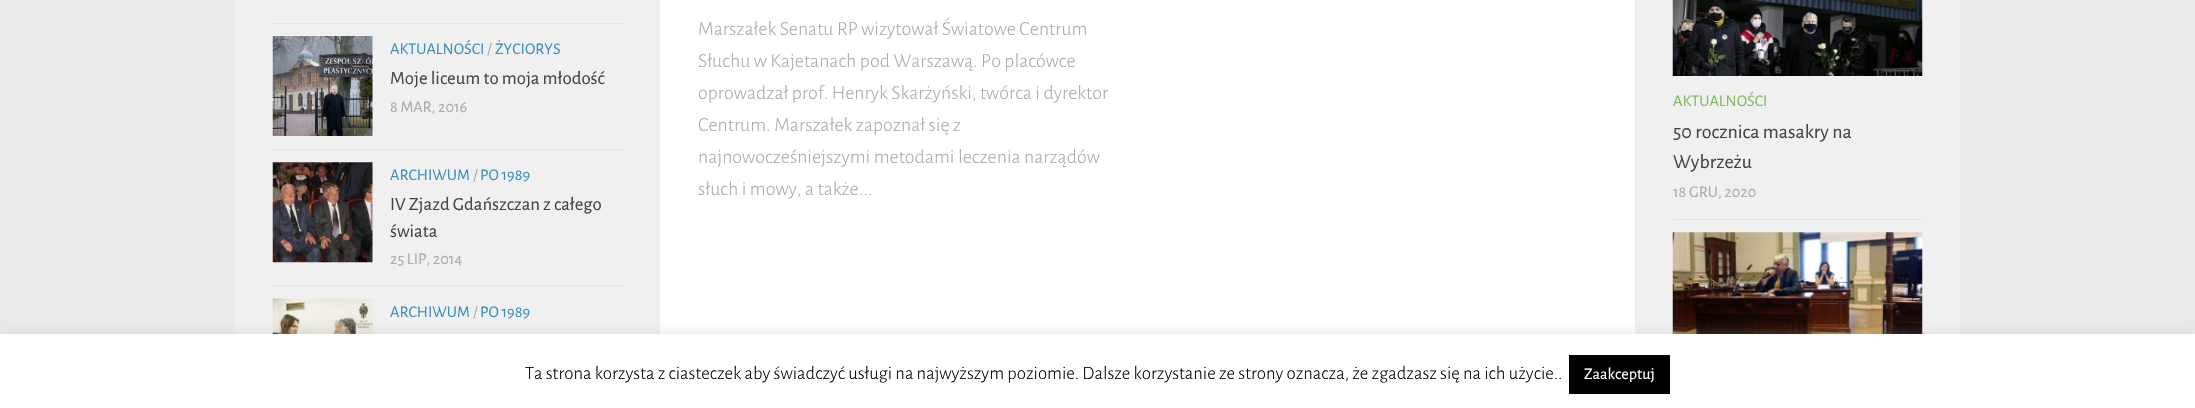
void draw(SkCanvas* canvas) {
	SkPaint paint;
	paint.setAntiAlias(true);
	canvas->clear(0xffeaeaea);
	paint.setColor(0xffffffff);
	canvas->drawRect(SkRect::MakeXYWH(660, 0, 975, 334), paint);
	paint.setColor(0xfff0f0f0);
	canvas->drawRect(SkRect::MakeXYWH(1635, 0, 325, 334), paint);
	canvas->drawRect(SkRect::MakeXYWH(235, 0, 425, 334), paint);
	paint.setColor(0xffe4e4e4);
	canvas->drawRect(SkRect::MakeXYWH(273, 23, 350, 1), paint);
	canvas->drawRect(SkRect::MakeXYWH(273, 149, 350, 1), paint);
	canvas->drawImageRect(SkImages::DeferredFromEncodedData(SkData::MakeFromFileName("img1.png")), SkRect::MakeXYWH(272, 36, 101, 100), SkSamplingOptions());
	SkFont f1(fontMgr->matchFamilyStyle("Alegreya Sans", SkFontStyle::Normal()), 16.25);
	f1.setSubpixel(true);
	paint.setColor(0xff3b8dbd);
	canvas->drawString("AKTUALNOŚCI", 390, 54, f1, paint);
	paint.setColor(0xffaaaaaa);
	canvas->drawString("/", 487, 54, f1, paint);
	paint.setColor(0xff3b8dbd);
	canvas->drawString("ŻYCIORYS", 495, 54, f1, paint);
	SkFont f2(fontMgr->matchFamilyStyle("Alegreya Sans", SkFontStyle::Normal()), 18.75);
	f2.setSubpixel(true);
	paint.setColor(0xff444444);
	canvas->drawString("Moje liceum to moja młodość", 390, 84, f2, paint);
	paint.setColor(0xffaaaaaa);
	canvas->drawString("8 MAR, 2016", 390, 112, f1, paint);
	paint.setColor(0xffe4e4e4);
	canvas->drawRect(SkRect::MakeXYWH(273, 285, 350, 1), paint);
	canvas->drawImageRect(SkImages::DeferredFromEncodedData(SkData::MakeFromFileName("img2.png")), SkRect::MakeXYWH(272, 162, 101, 101), SkSamplingOptions());
	paint.setColor(0xff3b8dbd);
	canvas->drawString("ARCHIWUM", 390, 180, f1, paint);
	paint.setColor(0xffaaaaaa);
	canvas->drawString("/", 473, 180, f1, paint);
	paint.setColor(0xff3b8dbd);
	canvas->drawString("PO 1989", 480, 180, f1, paint);
	paint.setColor(0xff444444);
	canvas->drawString("IV Zjazd Gdańszczan z całego", 390, 210, f2, paint);
	canvas->drawString("świata", 390, 237, f2, paint);
	paint.setColor(0xffaaaaaa);
	canvas->drawString("25 LIP, 2014", 390, 264, f1, paint);
	canvas->drawImageRect(SkImages::DeferredFromEncodedData(SkData::MakeFromFileName("img3.png")), SkRect::MakeXYWH(272, 298, 101, 36), SkSamplingOptions());
	paint.setColor(0xff3b8dbd);
	canvas->drawString("ARCHIWUM", 390, 317, f1, paint);
	paint.setColor(0xffaaaaaa);
	canvas->drawString("/", 473, 317, f1, paint);
	paint.setColor(0xff3b8dbd);
	canvas->drawString("PO 1989", 480, 317, f1, paint);
	SkFont f3(fontMgr->matchFamilyStyle("Alegreya Sans", SkFontStyle(300, SkFontStyle::kNormal_Width, SkFontStyle::kUpright_Slant)), 20);
	f3.setSubpixel(true);
	paint.setColor(0xffaaaaaa);
	canvas->drawString("Marszałek Senatu RP wizytował Światowe Centrum", 698, 35, f3, paint);
	canvas->drawString("Słuchu w Kajetanach pod Warszawą. Po placówce", 698, 67, f3, paint);
	canvas->drawString("oprowadzał prof. Henryk Skarżyński, twórca i dyrektor", 698, 99, f3, paint);
	canvas->drawString("Centrum. Marszałek zapoznał się z", 698, 131, f3, paint);
	canvas->drawString("najnowocześniejszymi metodami leczenia narządów", 698, 163, f3, paint);
	canvas->drawString("słuch i mowy, a także...", 698, 195, f3, paint);
	paint.setColor(0xffe4e4e4);
	canvas->drawRect(SkRect::MakeXYWH(1673, 219, 250, 1), paint);
	canvas->drawImageRect(SkImages::DeferredFromEncodedData(SkData::MakeFromFileName("img4.png")), SkRect::MakeXYWH(1672, 0, 251, 76), SkSamplingOptions());
	paint.setColor(0xff82b965);
	canvas->drawString("AKTUALNOŚCI", 1673, 106, f1, paint);
	SkFont f4(fontMgr->matchFamilyStyle("Alegreya Sans", SkFontStyle::Normal()), 20);
	f4.setSubpixel(true);
	paint.setColor(0xff444444);
	canvas->drawString("50 rocznica masakry na", 1673, 138, f4, paint);
	canvas->drawString("Wybrzeżu", 1673, 168, f4, paint);
	paint.setColor(0xffaaaaaa);
	canvas->drawString("18 GRU, 2020", 1673, 197, f1, paint);
	canvas->drawImageRect(SkImages::DeferredFromEncodedData(SkData::MakeFromFileName("img5.png")), SkRect::MakeXYWH(1672, 232, 251, 102), SkSamplingOptions());
	paint.setColor(0x4dacabab);
	paint.setMaskFilter(SkMaskFilter::MakeBlur(kNormal_SkBlurStyle, 6));
	canvas->drawRect(SkRect::MakeXYWH(0, 333, 2195, 75), paint);
	paint.setMaskFilter(nullptr);
	paint.setColor(0xffffffff);
	canvas->drawRect(SkRect::MakeXYWH(0, 334, 2195, 74), paint);
	SkFont f5(fontMgr->matchFamilyStyle("Alegreya Sans", SkFontStyle(300, SkFontStyle::kNormal_Width, SkFontStyle::kUpright_Slant)), 18.75);
	f5.setSubpixel(true);
	paint.setColor(0xff000000);
	canvas->drawString("Ta strona korzysta z ciasteczek aby świadczyć usługi na najwyższym poziomie. Dalsze korzystanie ze strony oznacza, że zgadzasz się na ich użycie..", 525, 379, f5, paint);
	canvas->drawRect(SkRect::MakeXYWH(1569, 355, 101, 39), paint);
	paint.setColor(0xffffffff);
	canvas->drawString("Zaakceptuj", 1584, 379, f1, paint);
}
